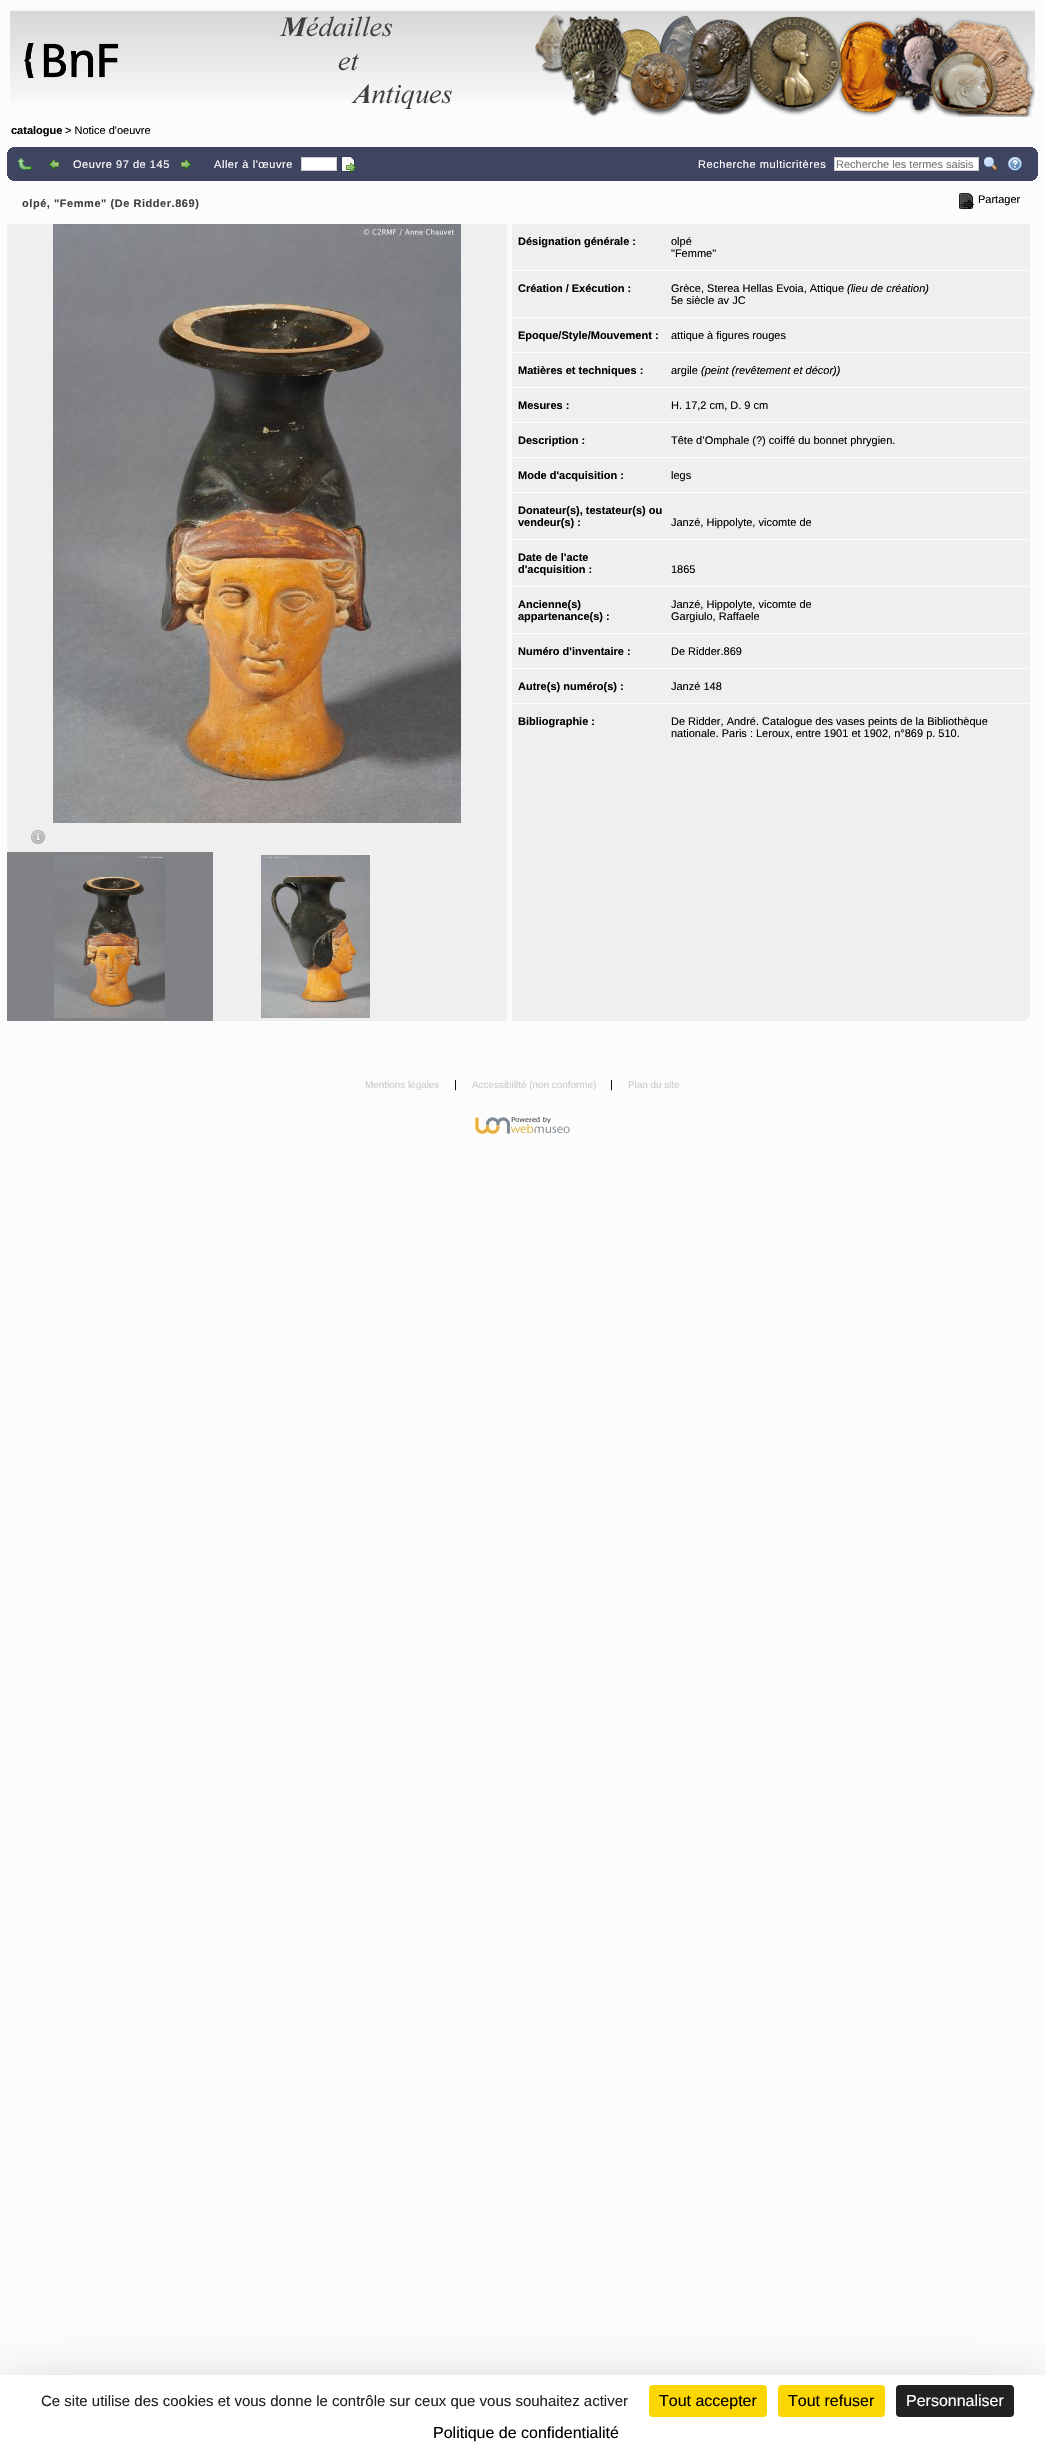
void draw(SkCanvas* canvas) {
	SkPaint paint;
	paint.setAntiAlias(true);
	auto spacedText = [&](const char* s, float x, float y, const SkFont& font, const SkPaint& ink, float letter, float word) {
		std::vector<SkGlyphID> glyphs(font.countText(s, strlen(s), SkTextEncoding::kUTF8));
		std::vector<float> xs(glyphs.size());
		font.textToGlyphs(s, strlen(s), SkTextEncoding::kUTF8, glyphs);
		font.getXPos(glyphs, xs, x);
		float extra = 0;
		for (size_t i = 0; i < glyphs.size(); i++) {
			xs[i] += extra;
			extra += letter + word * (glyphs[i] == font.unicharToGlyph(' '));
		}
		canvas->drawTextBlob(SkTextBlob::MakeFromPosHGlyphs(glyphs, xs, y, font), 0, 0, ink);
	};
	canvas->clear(0xfffcfcfc);
	canvas->drawImageRect(SkImages::DeferredFromEncodedData(SkData::MakeFromFileName("img1.png")), SkRect::MakeXYWH(10, 10, 1025, 91), SkSamplingOptions());
	canvas->drawImageRect(SkImages::DeferredFromEncodedData(SkData::MakeFromFileName("img2.png")), SkRect::MakeXYWH(24, 16, 428, 93), SkSamplingOptions());
	canvas->drawImageRect(SkImages::DeferredFromEncodedData(SkData::MakeFromFileName("img3.png")), SkRect::MakeXYWH(535, 15, 500, 102), SkSamplingOptions());
	SkFont f1(fontMgr->matchFamilyStyle("Liberation Sans", SkFontStyle::Bold()), 11);
	f1.setSubpixel(true);
	paint.setColor(0xff000000);
	canvas->drawString("catalogue", 11, 134, f1, paint);
	SkFont f2(fontMgr->matchFamilyStyle("Liberation Sans", SkFontStyle::Normal()), 11);
	f2.setSubpixel(true);
	canvas->drawString("> Notice d'oeuvre", 65, 134, f2, paint);
	paint.setColor(0xff3f4461);
	canvas->drawRect(SkRect::MakeXYWH(7, 147, 1031, 34), paint);
	canvas->drawImageRect(SkImages::DeferredFromEncodedData(SkData::MakeFromFileName("img4.png")), SkRect::MakeXYWH(7, 147, 5, 5), SkSamplingOptions());
	canvas->drawImageRect(SkImages::DeferredFromEncodedData(SkData::MakeFromFileName("img5.png")), SkRect::MakeXYWH(1033, 147, 5, 5), SkSamplingOptions());
	canvas->drawImageRect(SkImages::DeferredFromEncodedData(SkData::MakeFromFileName("img6.png")), SkRect::MakeXYWH(7, 176, 5, 5), SkSamplingOptions());
	canvas->drawImageRect(SkImages::DeferredFromEncodedData(SkData::MakeFromFileName("img7.png")), SkRect::MakeXYWH(17, 158, 15, 12), SkSamplingOptions());
	canvas->drawImageRect(SkImages::DeferredFromEncodedData(SkData::MakeFromFileName("img8.png")), SkRect::MakeXYWH(49, 160, 10, 9), SkSamplingOptions());
	paint.setColor(0xffffffff);
	spacedText("Oeuvre 97 de 145", 73, 168, f2, paint, 0.55, 0);
	canvas->drawImageRect(SkImages::DeferredFromEncodedData(SkData::MakeFromFileName("img9.png")), SkRect::MakeXYWH(181, 160, 10, 9), SkSamplingOptions());
	spacedText("Aller à l'œuvre", 214, 168, f2, paint, 0.55, 0);
	canvas->drawRect(SkRect::MakeXYWH(301.5, 157.5, 35, 13), paint);
	paint.setStroke(true);
	paint.setStrokeWidth(1);
	paint.setColor(0xffcccccc);
	canvas->drawRect(SkRect::MakeXYWH(301.5, 157.5, 35, 13), paint);
	canvas->drawImageRect(SkImages::DeferredFromEncodedData(SkData::MakeFromFileName("img10.png")), SkRect::MakeXYWH(341, 156, 15, 16), SkSamplingOptions());
	canvas->drawImageRect(SkImages::DeferredFromEncodedData(SkData::MakeFromFileName("img11.png")), SkRect::MakeXYWH(1033, 176, 5, 5), SkSamplingOptions());
	paint.setStroke(false);
	paint.setColor(0xffffffff);
	spacedText("Recherche multicritères", 698, 168, f2, paint, 0.55, 0);
	canvas->drawRect(SkRect::MakeXYWH(834.5, 157.5, 144, 13), paint);
	paint.setStroke(true);
	paint.setColor(0xffcccccc);
	canvas->drawRect(SkRect::MakeXYWH(834.5, 157.5, 144, 13), paint);
	paint.setStroke(false);
	paint.setColor(0xff757575);
	canvas->drawString("Recherche les termes saisis", 836, 168, f2, paint);
	canvas->drawImageRect(SkImages::DeferredFromEncodedData(SkData::MakeFromFileName("img12.png")), SkRect::MakeXYWH(984, 157, 13, 14), SkSamplingOptions());
	canvas->drawImageRect(SkImages::DeferredFromEncodedData(SkData::MakeFromFileName("img13.png")), SkRect::MakeXYWH(1008, 157, 14, 14), SkSamplingOptions());
	paint.setColor(0xff3f3f3f);
	spacedText("olpé, \"Femme\" (De Ridder.869)", 22, 207, f1, paint, 0.55, 0);
	canvas->drawImageRect(SkImages::DeferredFromEncodedData(SkData::MakeFromFileName("img14.png")), SkRect::MakeXYWH(959, 193, 15, 16), SkSamplingOptions());
	paint.setColor(0xff000000);
	canvas->drawString("Partager", 978, 203, f2, paint);
	paint.setColor(0xffefefef);
	canvas->drawRect(SkRect::MakeXYWH(7, 224, 500, 797), paint);
	canvas->drawImageRect(SkImages::DeferredFromEncodedData(SkData::MakeFromFileName("img15.png")), SkRect::MakeXYWH(31, 830, 14, 14), SkSamplingOptions());
	paint.setColor(0xff818285);
	canvas->drawRect(SkRect::MakeXYWH(7, 852, 206, 169), paint);
	canvas->drawImageRect(SkImages::DeferredFromEncodedData(SkData::MakeFromFileName("img16.png")), SkRect::MakeXYWH(54, 855, 111, 163), SkSamplingOptions());
	canvas->drawImageRect(SkImages::DeferredFromEncodedData(SkData::MakeFromFileName("img17.png")), SkRect::MakeXYWH(261, 855, 109, 163), SkSamplingOptions());
	canvas->drawImageRect(SkImages::DeferredFromEncodedData(SkData::MakeFromFileName("img18.png")), SkRect::MakeXYWH(53, 224, 408, 599), SkSamplingOptions());
	paint.setColor(0xffefefef);
	canvas->drawRect(SkRect::MakeXYWH(512, 224, 518, 797), paint);
	canvas->drawImageRect(SkImages::DeferredFromEncodedData(SkData::MakeFromFileName("img19.png")), SkRect::MakeXYWH(1025, 1016, 5, 5), SkSamplingOptions());
	paint.setColor(0xff000000);
	canvas->drawString("Désignation générale :", 518, 245, f1, paint);
	canvas->drawString("olpé", 671, 245, f2, paint);
	canvas->drawString("\"Femme\"", 671, 257, f2, paint);
	paint.setColor(0xfffcfcfc);
	canvas->drawRect(SkRect::MakeXYWH(512, 270, 518, 1), paint);
	paint.setColor(0xff000000);
	canvas->drawString("Création / Exécution :", 518, 292, f1, paint);
	canvas->drawString("Grèce, Sterea Hellas Evoia, Attique", 671, 292, f2, paint);
	SkFont f3(fontMgr->matchFamilyStyle("Liberation Sans", SkFontStyle::Italic()), 11);
	f3.setSubpixel(true);
	canvas->drawString("(lieu de création)", 847, 292, f3, paint);
	canvas->drawString("5e siècle av JC", 671, 304, f2, paint);
	paint.setColor(0xfffcfcfc);
	canvas->drawRect(SkRect::MakeXYWH(512, 317, 518, 1), paint);
	paint.setColor(0xff000000);
	canvas->drawString("Epoque/Style/Mouvement :", 518, 339, f1, paint);
	canvas->drawString("attique à figures rouges", 671, 339, f2, paint);
	paint.setColor(0xfffcfcfc);
	canvas->drawRect(SkRect::MakeXYWH(512, 352, 518, 1), paint);
	paint.setColor(0xff000000);
	canvas->drawString("Matières et techniques :", 518, 374, f1, paint);
	canvas->drawString("argile", 671, 374, f2, paint);
	canvas->drawString("(peint (revêtement et décor))", 701, 374, f3, paint);
	paint.setColor(0xfffcfcfc);
	canvas->drawRect(SkRect::MakeXYWH(512, 387, 518, 1), paint);
	paint.setColor(0xff000000);
	canvas->drawString("Mesures :", 518, 409, f1, paint);
	canvas->drawString("H. 17,2 cm, D. 9 cm", 671, 409, f2, paint);
	paint.setColor(0xfffcfcfc);
	canvas->drawRect(SkRect::MakeXYWH(512, 422, 518, 1), paint);
	paint.setColor(0xff000000);
	canvas->drawString("Description :", 518, 444, f1, paint);
	canvas->drawString("Tête d’Omphale (?) coiffé du bonnet phrygien.", 671, 444, f2, paint);
	paint.setColor(0xfffcfcfc);
	canvas->drawRect(SkRect::MakeXYWH(512, 457, 518, 1), paint);
	paint.setColor(0xff000000);
	canvas->drawString("Mode d'acquisition :", 518, 479, f1, paint);
	canvas->drawString("legs", 671, 479, f2, paint);
	paint.setColor(0xfffcfcfc);
	canvas->drawRect(SkRect::MakeXYWH(512, 492, 518, 1), paint);
	paint.setColor(0xff000000);
	canvas->drawString("Donateur(s), testateur(s) ou", 518, 514, f1, paint);
	canvas->drawString("vendeur(s) :", 518, 526, f1, paint);
	canvas->drawString("Janzé, Hippolyte, vicomte de", 671, 526, f2, paint);
	paint.setColor(0xfffcfcfc);
	canvas->drawRect(SkRect::MakeXYWH(512, 539, 518, 1), paint);
	paint.setColor(0xff000000);
	canvas->drawString("Date de l'acte", 518, 561, f1, paint);
	canvas->drawString("d'acquisition :", 518, 573, f1, paint);
	canvas->drawString("1865", 671, 573, f2, paint);
	paint.setColor(0xfffcfcfc);
	canvas->drawRect(SkRect::MakeXYWH(512, 586, 518, 1), paint);
	paint.setColor(0xff000000);
	canvas->drawString("Ancienne(s)", 518, 608, f1, paint);
	canvas->drawString("appartenance(s) :", 518, 620, f1, paint);
	canvas->drawString("Janzé, Hippolyte, vicomte de", 671, 608, f2, paint);
	canvas->drawString("Gargiulo, Raffaele", 671, 620, f2, paint);
	paint.setColor(0xfffcfcfc);
	canvas->drawRect(SkRect::MakeXYWH(512, 633, 518, 1), paint);
	paint.setColor(0xff000000);
	canvas->drawString("Numéro d'inventaire :", 518, 655, f1, paint);
	canvas->drawString("De Ridder.869", 671, 655, f2, paint);
	paint.setColor(0xfffcfcfc);
	canvas->drawRect(SkRect::MakeXYWH(512, 668, 518, 1), paint);
	paint.setColor(0xff000000);
	canvas->drawString("Autre(s) numéro(s) :", 518, 690, f1, paint);
	canvas->drawString("Janzé 148", 671, 690, f2, paint);
	paint.setColor(0xfffcfcfc);
	canvas->drawRect(SkRect::MakeXYWH(512, 703, 518, 1), paint);
	paint.setColor(0xff000000);
	canvas->drawString("Bibliographie :", 518, 725, f1, paint);
	canvas->drawString("De Ridder, André. Catalogue des vases peints de la Bibliothèque", 671, 725, f2, paint);
	canvas->drawString("nationale. Paris : Leroux, entre 1901 et 1902, n°869 p. 510.", 671, 737, f2, paint);
	SkFont f4(fontMgr->matchFamilyStyle("Liberation Sans", SkFontStyle::Normal()), 9.9);
	f4.setSubpixel(true);
	paint.setColor(0xffcccccc);
	canvas->drawString("Mentions légales", 365, 1088, f4, paint);
	paint.setColor(0xff000000);
	canvas->drawString("|", 454, 1088, f2, paint);
	paint.setColor(0xffcccccc);
	canvas->drawString("Accessibilité (non conforme)", 472, 1088, f4, paint);
	paint.setColor(0xff000000);
	canvas->drawString("|", 610, 1088, f2, paint);
	paint.setColor(0xffcccccc);
	canvas->drawString("Plan du site", 628, 1088, f4, paint);
	canvas->drawImageRect(SkImages::DeferredFromEncodedData(SkData::MakeFromFileName("img20.png")), SkRect::MakeXYWH(475, 1117, 95, 17), SkSamplingOptions());
	paint.setColor(0x40000000);
	paint.setMaskFilter(SkMaskFilter::MakeBlur(kNormal_SkBlurStyle, 30));
	canvas->drawRect(SkRect::MakeXYWH(0, 2395, 1045, 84), paint);
	paint.setMaskFilter(nullptr);
	paint.setColor(0xffffffff);
	canvas->drawRect(SkRect::MakeXYWH(0, 2375, 1045, 84), paint);
	SkFont f5(fontMgr->matchFamilyStyle("Liberation Sans", SkFontStyle::Normal()), 15);
	f5.setSubpixel(true);
	paint.setColor(0xff222222);
	canvas->drawString("Ce site utilise des cookies et vous donne le contrôle sur ceux que vous souhaitez activer", 41, 2406, f5, paint);
	paint.setColor(0xfffbd600);
	canvas->drawRoundRect(SkRect::MakeXYWH(649, 2385, 118, 32), 4, 4, paint);
	SkFont f6(fontMgr->matchFamilyStyle("Liberation Sans", SkFontStyle::Normal()), 16);
	f6.setSubpixel(true);
	paint.setColor(0xff000000);
	canvas->drawString("Tout accepter", 659, 2406, f6, paint);
	paint.setColor(0xfffbd600);
	canvas->drawRoundRect(SkRect::MakeXYWH(778, 2385, 107, 32), 4, 4, paint);
	paint.setColor(0xff000000);
	canvas->drawString("Tout refuser", 788, 2406, f6, paint);
	paint.setColor(0xff222222);
	canvas->drawRoundRect(SkRect::MakeXYWH(896, 2385, 118, 32), 4, 4, paint);
	paint.setColor(0xffffffff);
	canvas->drawString("Personnaliser", 906, 2406, f6, paint);
	paint.setColor(0xff000000);
	canvas->drawString("Politique de confidentialité", 433, 2438, f6, paint);
}
